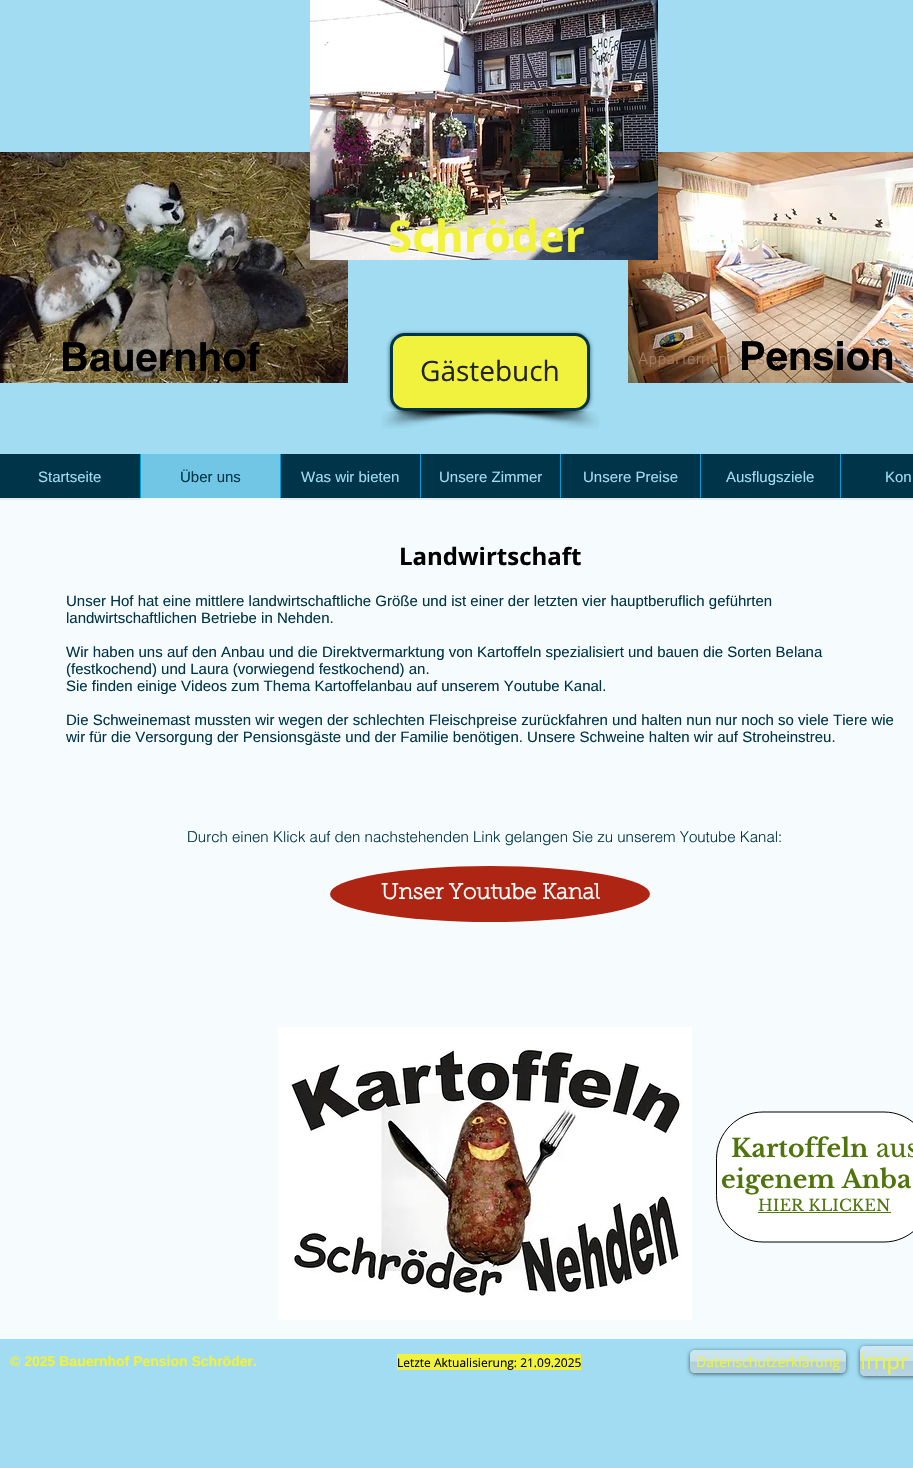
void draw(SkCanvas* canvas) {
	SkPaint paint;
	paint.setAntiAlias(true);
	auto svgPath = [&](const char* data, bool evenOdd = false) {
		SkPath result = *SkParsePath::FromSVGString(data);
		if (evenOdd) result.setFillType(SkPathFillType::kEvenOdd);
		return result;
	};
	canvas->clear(0xffa1dcf2);
	canvas->drawImageRect(SkImages::DeferredFromEncodedData(SkData::MakeFromFileName("img1.png")), SkRect::MakeXYWH(0, 152, 348, 231), SkSamplingOptions());
	canvas->drawImageRect(SkImages::DeferredFromEncodedData(SkData::MakeFromFileName("img5.png")), SkRect::MakeXYWH(628, 152, 285, 231), SkSamplingOptions());
	canvas->drawImageRect(SkImages::DeferredFromEncodedData(SkData::MakeFromFileName("img2.png")), SkRect::MakeXYWH(310, 0, 348, 260), SkSamplingOptions());
	SkFont f1(fontMgr->matchFamilyStyle("Open Sans", SkFontStyle::Bold()), 44);
	f1.setSubpixel(true);
	paint.setColor(0xfff0f23d);
	canvas->drawString("Schröder", 388, 252, f1, paint);
	SkFont f2(fontMgr->matchFamilyStyle("helvetica", SkFontStyle::Bold()), 40);
	f2.setSubpixel(true);
	paint.setColor(0xff000000);
	canvas->drawString("Bauernhof", 60, 371, f2, paint);
	SkFont f3(fontMgr->matchFamilyStyle("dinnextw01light", SkFontStyle(300, SkFontStyle::kNormal_Width, SkFontStyle::kUpright_Slant)), 17);
	f3.setSubpixel(true);
	paint.setColor(0xffa37e60);
	canvas->drawString("Appartement Hasenstube", 638, 364, f3, paint);
	paint.setColor(0xff000000);
	canvas->drawString("Pension", 739, 370, f2, paint);
	canvas->drawImageRect(SkImages::DeferredFromEncodedData(SkData::MakeFromFileName("img3.png")), SkRect::MakeXYWH(381, 411, 147, 18), SkSamplingOptions());
	canvas->drawImageRect(SkImages::DeferredFromEncodedData(SkData::MakeFromFileName("img4.png")), SkRect::MakeXYWH(468, 411, 131, 18), SkSamplingOptions());
	paint.setColor(0x99000000);
	paint.setMaskFilter(SkMaskFilter::MakeBlur(kNormal_SkBlurStyle, 2));
	canvas->drawRoundRect(SkRect::MakeXYWH(390, 334, 200, 78), 15, 15, paint);
	paint.setMaskFilter(nullptr);
	paint.setColor(0xfff0f23d);
	canvas->drawRoundRect(SkRect::MakeXYWH(391.5, 334.5, 197, 75), 13.5, 13.5, paint);
	paint.setStroke(true);
	paint.setStrokeWidth(3);
	paint.setColor(0xff003448);
	canvas->drawRoundRect(SkRect::MakeXYWH(391.5, 334.5, 197, 75), 13.5, 13.5, paint);
	SkFont f4(fontMgr->matchFamilyStyle("Open Sans", SkFontStyle::Normal()), 28);
	f4.setSubpixel(true);
	paint.setStroke(false);
	paint.setColor(0xff232323);
	canvas->drawString("Gästebuch", 420, 381, f4, paint);
	paint.setColor(0xff003448);
	canvas->drawRect(SkRect::MakeXYWH(0, 454, 913, 44), paint);
	paint.setColor(0xffe6ebed);
	canvas->drawRect(SkRect::MakeXYWH(0, 498, 913, 2), paint);
	SkFont f5(fontMgr->matchFamilyStyle("Liberation Sans", SkFontStyle::Normal()), 15);
	f5.setSubpixel(true);
	paint.setColor(0xffa1dcf2);
	canvas->drawString("Startseite", 38, 482, f5, paint);
	paint.setColor(0xff72c6e5);
	canvas->drawRect(SkRect::MakeXYWH(141, 454, 139, 44), paint);
	paint.setColor(0xfff1f9fc);
	canvas->drawRect(SkRect::MakeXYWH(140, 498, 140, 2), paint);
	paint.setColor(0xff009ed8);
	canvas->drawRect(SkRect::MakeXYWH(140, 454, 1, 46), paint);
	paint.setColor(0xffe6f5fb);
	canvas->drawRect(SkRect::MakeXYWH(140, 498, 1, 2), paint);
	paint.setColor(0xff003448);
	canvas->drawString("Über uns", 180, 482, f5, paint);
	paint.setColor(0xff009ed8);
	canvas->drawRect(SkRect::MakeXYWH(280, 454, 1, 46), paint);
	paint.setColor(0xffe6f5fb);
	canvas->drawRect(SkRect::MakeXYWH(280, 498, 1, 2), paint);
	paint.setColor(0xffa1dcf2);
	canvas->drawString("Was wir bieten", 301, 482, f5, paint);
	paint.setColor(0xff009ed8);
	canvas->drawRect(SkRect::MakeXYWH(420, 454, 1, 46), paint);
	paint.setColor(0xffe6f5fb);
	canvas->drawRect(SkRect::MakeXYWH(420, 498, 1, 2), paint);
	paint.setColor(0xffa1dcf2);
	canvas->drawString("Unsere Zimmer", 439, 482, f5, paint);
	paint.setColor(0xff009ed8);
	canvas->drawRect(SkRect::MakeXYWH(560, 454, 1, 46), paint);
	paint.setColor(0xffe6f5fb);
	canvas->drawRect(SkRect::MakeXYWH(560, 498, 1, 2), paint);
	paint.setColor(0xffa1dcf2);
	canvas->drawString("Unsere Preise", 583, 482, f5, paint);
	paint.setColor(0xff009ed8);
	canvas->drawRect(SkRect::MakeXYWH(700, 454, 1, 46), paint);
	paint.setColor(0xffe6f5fb);
	canvas->drawRect(SkRect::MakeXYWH(700, 498, 1, 2), paint);
	paint.setColor(0xffa1dcf2);
	canvas->drawString("Ausflugsziele", 726, 482, f5, paint);
	paint.setColor(0xff009ed8);
	canvas->drawRect(SkRect::MakeXYWH(840, 454, 1, 46), paint);
	paint.setColor(0xffe6f5fb);
	canvas->drawRect(SkRect::MakeXYWH(840, 498, 1, 2), paint);
	paint.setColor(0xffa1dcf2);
	canvas->drawString("Kon", 885, 482, f5, paint);
	paint.setColor(0xfff6fcfe);
	canvas->drawRect(SkRect::MakeXYWH(0, 500, 913, 839), paint);
	SkFont f6(fontMgr->matchFamilyStyle("Open Sans", SkFontStyle::Bold()), 24);
	f6.setSubpixel(true);
	paint.setColor(0xff000000);
	canvas->drawString("Landwirtschaft", 399, 565, f6, paint);
	paint.setColor(0xff003448);
	canvas->drawString("Unser Hof hat eine mittlere landwirtschaftliche Größe und ist einer der letzten vier hauptberuflich geführten", 66, 606, f5, paint);
	canvas->drawString("landwirtschaftlichen Betriebe in Nehden.", 66, 623, f5, paint);
	canvas->drawString("Wir haben uns auf den Anbau und die Direktvermarktung von Kartoffeln spezialisiert und bauen die Sorten Belana", 66, 657, f5, paint);
	canvas->drawString("(festkochend) und Laura (vorwiegend festkochend) an.", 66, 674, f5, paint);
	canvas->drawString("Sie finden einige Videos zum Thema Kartoffelanbau auf unserem Youtube Kanal.", 66, 691, f5, paint);
	canvas->drawString("Die Schweinemast mussten wir wegen der schlechten Fleischpreise zurückfahren und halten nun nur noch so viele Tiere wie", 66, 725, f5, paint);
	canvas->drawString("wir für die Versorgung der Pensionsgäste und der Familie benötigen. Unsere Schweine halten wir auf Stroheinstreu.", 66, 742, f5, paint);
	SkFont f7(fontMgr->matchFamilyStyle("helvetica", SkFontStyle(300, SkFontStyle::kNormal_Width, SkFontStyle::kUpright_Slant)), 15);
	f7.setSubpixel(true);
	canvas->drawString("Durch einen Klick auf den nachstehenden Link gelangen Sie zu unserem Youtube Kanal:", 187, 842, f7, paint);
	paint.setColor(0xffaf2513);
	canvas->drawOval(SkRect::MakeXYWH(330, 866, 320, 56), paint);
	SkFont f8(fontMgr->matchFamilyStyle("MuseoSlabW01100", SkFontStyle::Bold()), 22);
	f8.setSubpixel(true);
	paint.setColor(0xffffffff);
	canvas->drawString("Unser Youtube Kanal", 381, 899, f8, paint);
	canvas->drawImageRect(SkImages::DeferredFromEncodedData(SkData::MakeFromFileName("img6.png")), SkRect::MakeXYWH(278, 1027, 414, 293), SkSamplingOptions());
	canvas->drawPath(svgPath("M884 1242H763C738 1242 717 1221 717 1196V1158C717 1133 738 1112 763 1112H884C909 1112 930 1133 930 1158V1196C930 1221 909 1242 884 1242Z"), paint);
	paint.setStroke(true);
	paint.setStrokeWidth(1);
	paint.setColor(0xff000000);
	canvas->drawPath(svgPath("M884 1242H763C737.5 1242 716.5 1221 716.5 1195.5V1158.5C716.5 1133 737.5 1112 763 1112H884C909.5 1112 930.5 1133 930.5 1158.5V1195.5C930.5 1221 909.5 1242 884 1242Z"), paint);
	SkFont f9(fontMgr->matchFamilyStyle("Libre Baskerville", SkFontStyle::Bold()), 25);
	f9.setSubpixel(true);
	paint.setStroke(false);
	paint.setColor(0xff50750c);
	canvas->drawString("Kartoffeln", 731, 1157, f9, paint);
	SkFont f10(fontMgr->matchFamilyStyle("Libre Baskerville", SkFontStyle::Normal()), 25);
	f10.setSubpixel(true);
	canvas->drawString("aus", 876, 1157, f10, paint);
	canvas->drawString("eigenem Anba", 721, 1188, f9, paint);
	SkFont f11(fontMgr->matchFamilyStyle("Libre Baskerville", SkFontStyle::Normal()), 16);
	f11.setSubpixel(true);
	canvas->drawString("HIER KLICKEN", 758, 1211, f11, paint);
	canvas->drawRect(SkRect::MakeXYWH(758, 1212, 133, 1), paint);
	SkFont f12(fontMgr->matchFamilyStyle("Liberation Sans", SkFontStyle::Bold()), 14);
	f12.setSubpixel(true);
	paint.setColor(0xfff0f23d);
	canvas->drawString("© 2025 Bauernhof Pension Schröder.", 10, 1366, f12, paint);
	canvas->drawRect(SkRect::MakeXYWH(397, 1354, 184, 16), paint);
	SkFont f13(fontMgr->matchFamilyStyle("Open Sans", SkFontStyle::Normal()), 12);
	f13.setSubpixel(true);
	paint.setColor(0xff000000);
	canvas->drawString("Letzte Aktualisierung: 21.09.2025", 397, 1367, f13, paint);
	canvas->save();
	canvas->clipPath(svgPath("M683 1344H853V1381H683ZM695 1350H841C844 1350 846 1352 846 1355V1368C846 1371 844 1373 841 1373H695C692 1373 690 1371 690 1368V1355C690 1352 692 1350 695 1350Z", true), true);
	paint.setColor(0x99000000);
	paint.setMaskFilter(SkMaskFilter::MakeBlur(kNormal_SkBlurStyle, 2));
	canvas->drawRoundRect(SkRect::MakeXYWH(690, 1351, 156, 23), 5, 5, paint);
	paint.setMaskFilter(nullptr);
	canvas->restore();
	paint.setColor(0x73e3e3e3);
	canvas->drawRoundRect(SkRect::MakeXYWH(690, 1350, 156, 23), 5, 5, paint);
	canvas->drawImageRect(SkImages::DeferredFromEncodedData(SkData::MakeFromFileName("img7.png")), SkRect::MakeXYWH(690, 1350, 156, 23), SkSamplingOptions());
	SkFont f14(fontMgr->matchFamilyStyle("Open Sans", SkFontStyle::Normal()), 14);
	f14.setSubpixel(true);
	paint.setColor(0xfff0f23d);
	canvas->drawString("Datenschutzerklärung", 696, 1367, f14, paint);
	canvas->save();
	canvas->clipPath(svgPath("M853 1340H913V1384H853ZM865 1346H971C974 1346 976 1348 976 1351V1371C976 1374 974 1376 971 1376H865C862 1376 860 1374 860 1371V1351C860 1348 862 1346 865 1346Z", true), true);
	paint.setColor(0x99000000);
	paint.setMaskFilter(SkMaskFilter::MakeBlur(kNormal_SkBlurStyle, 2));
	canvas->drawRoundRect(SkRect::MakeXYWH(860, 1347, 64, 30), 5, 5, paint);
	paint.setMaskFilter(nullptr);
	canvas->restore();
	paint.setColor(0x73e3e3e3);
	canvas->drawRoundRect(SkRect::MakeXYWH(860, 1346, 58, 30), 5, 5, paint);
	canvas->drawImageRect(SkImages::DeferredFromEncodedData(SkData::MakeFromFileName("img8.png")), SkRect::MakeXYWH(860, 1346, 53, 30), SkSamplingOptions());
	SkFont f15(fontMgr->matchFamilyStyle("Open Sans", SkFontStyle::Normal()), 22);
	f15.setSubpixel(true);
	paint.setColor(0xfff0f23d);
	canvas->drawString("Impr", 860, 1369, f15, paint);
}
